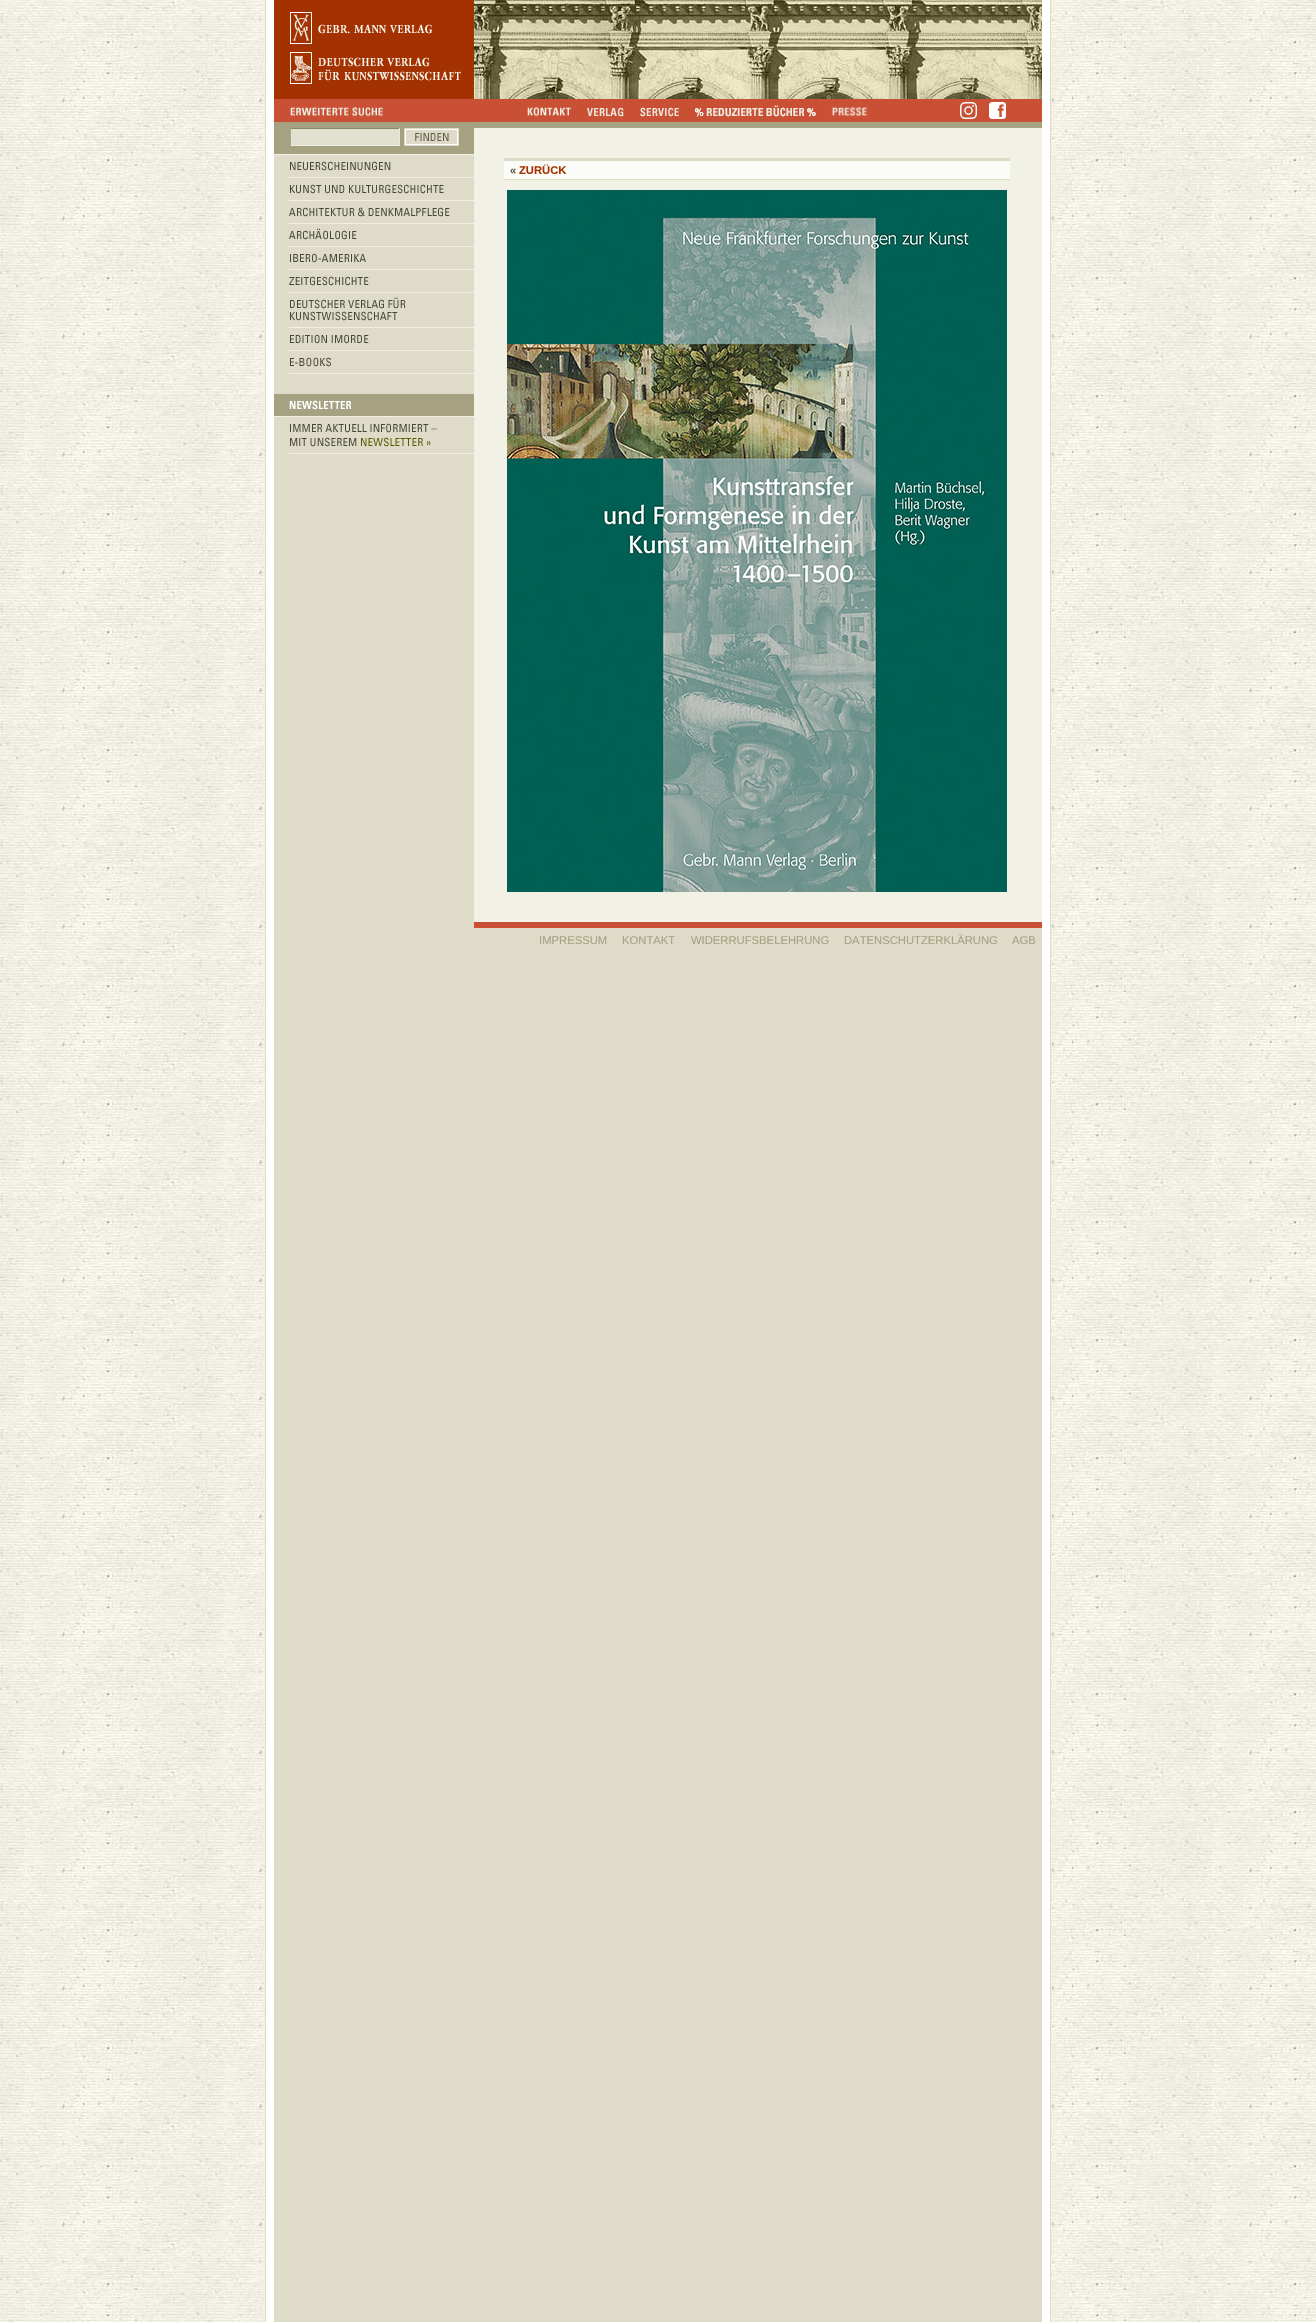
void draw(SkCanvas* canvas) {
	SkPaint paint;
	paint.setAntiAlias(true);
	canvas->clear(0xffffffff);
	canvas->drawImageRect(SkImages::DeferredFromEncodedData(SkData::MakeFromFileName("img1.png")), SkRect::MakeXYWH(0, 0, 1316, 2322), SkSamplingOptions());
	paint.setColor(0xffa43200);
	canvas->drawRect(SkRect::MakeXYWH(274, 0, 200, 99), paint);
	canvas->drawImageRect(SkImages::DeferredFromEncodedData(SkData::MakeFromFileName("img2.png")), SkRect::MakeXYWH(290, 12, 171, 72), SkSamplingOptions());
	canvas->drawImageRect(SkImages::DeferredFromEncodedData(SkData::MakeFromFileName("img3.png")), SkRect::MakeXYWH(474, 0, 568, 99), SkSamplingOptions());
	paint.setColor(0xffc95034);
	canvas->drawRect(SkRect::MakeXYWH(274, 99, 768, 23), paint);
	canvas->drawImageRect(SkImages::DeferredFromEncodedData(SkData::MakeFromFileName("img4.png")), SkRect::MakeXYWH(290, 106, 93, 11), SkSamplingOptions());
	canvas->drawImageRect(SkImages::DeferredFromEncodedData(SkData::MakeFromFileName("img5.png")), SkRect::MakeXYWH(527, 106, 44, 11), SkSamplingOptions());
	canvas->drawImageRect(SkImages::DeferredFromEncodedData(SkData::MakeFromFileName("img6.png")), SkRect::MakeXYWH(587, 107, 37, 10), SkSamplingOptions());
	canvas->drawImageRect(SkImages::DeferredFromEncodedData(SkData::MakeFromFileName("img7.png")), SkRect::MakeXYWH(640, 107, 39, 10), SkSamplingOptions());
	canvas->drawImageRect(SkImages::DeferredFromEncodedData(SkData::MakeFromFileName("img8.png")), SkRect::MakeXYWH(695, 105, 121, 12), SkSamplingOptions());
	canvas->drawImageRect(SkImages::DeferredFromEncodedData(SkData::MakeFromFileName("img9.png")), SkRect::MakeXYWH(831, 106, 37, 11), SkSamplingOptions());
	canvas->drawImageRect(SkImages::DeferredFromEncodedData(SkData::MakeFromFileName("img10.png")), SkRect::MakeXYWH(960, 102, 17, 17), SkSamplingOptions());
	canvas->drawImageRect(SkImages::DeferredFromEncodedData(SkData::MakeFromFileName("img11.png")), SkRect::MakeXYWH(989, 102, 17, 17), SkSamplingOptions());
	paint.setColor(0xffa6a281);
	canvas->drawRect(SkRect::MakeXYWH(274, 122, 200, 32), paint);
	paint.setColor(0xfff1f1e8);
	canvas->drawRect(SkRect::MakeXYWH(274, 154, 200, 1), paint);
	paint.setColor(0xffe2e0cf);
	canvas->drawRect(SkRect::MakeXYWH(291, 129, 108, 16), paint);
	paint.setColor(0xff898567);
	canvas->drawRect(SkRect::MakeXYWH(290, 128, 110, 1), paint);
	paint.setColor(0xffe8e6d8);
	canvas->drawRect(SkRect::MakeXYWH(399, 128, 1, 18), paint);
	paint.setColor(0xffeeece1);
	canvas->drawRect(SkRect::MakeXYWH(290, 145, 110, 1), paint);
	paint.setColor(0xffaaa78d);
	canvas->drawRect(SkRect::MakeXYWH(290, 128, 1, 18), paint);
	canvas->drawImageRect(SkImages::DeferredFromEncodedData(SkData::MakeFromFileName("img12.png")), SkRect::MakeXYWH(404, 128, 55, 18), SkSamplingOptions());
	canvas->drawImageRect(SkImages::DeferredFromEncodedData(SkData::MakeFromFileName("img13.png")), SkRect::MakeXYWH(289, 161, 185, 17), SkSamplingOptions());
	canvas->drawImageRect(SkImages::DeferredFromEncodedData(SkData::MakeFromFileName("img14.png")), SkRect::MakeXYWH(289, 184, 185, 17), SkSamplingOptions());
	canvas->drawImageRect(SkImages::DeferredFromEncodedData(SkData::MakeFromFileName("img15.png")), SkRect::MakeXYWH(289, 207, 185, 17), SkSamplingOptions());
	canvas->drawImageRect(SkImages::DeferredFromEncodedData(SkData::MakeFromFileName("img16.png")), SkRect::MakeXYWH(289, 228, 185, 19), SkSamplingOptions());
	canvas->drawImageRect(SkImages::DeferredFromEncodedData(SkData::MakeFromFileName("img17.png")), SkRect::MakeXYWH(289, 253, 185, 17), SkSamplingOptions());
	canvas->drawImageRect(SkImages::DeferredFromEncodedData(SkData::MakeFromFileName("img18.png")), SkRect::MakeXYWH(289, 276, 185, 17), SkSamplingOptions());
	canvas->drawImageRect(SkImages::DeferredFromEncodedData(SkData::MakeFromFileName("img19.png")), SkRect::MakeXYWH(289, 297, 185, 31), SkSamplingOptions());
	canvas->drawImageRect(SkImages::DeferredFromEncodedData(SkData::MakeFromFileName("img20.png")), SkRect::MakeXYWH(289, 334, 185, 17), SkSamplingOptions());
	canvas->drawImageRect(SkImages::DeferredFromEncodedData(SkData::MakeFromFileName("img21.png")), SkRect::MakeXYWH(289, 357, 185, 17), SkSamplingOptions());
	canvas->drawImageRect(SkImages::DeferredFromEncodedData(SkData::MakeFromFileName("img22.png")), SkRect::MakeXYWH(274, 394, 200, 23), SkSamplingOptions());
	canvas->drawImageRect(SkImages::DeferredFromEncodedData(SkData::MakeFromFileName("img23.png")), SkRect::MakeXYWH(289, 423, 185, 31), SkSamplingOptions());
	paint.setColor(0xfff2f1e5);
	canvas->drawRect(SkRect::MakeXYWH(474, 128, 568, 794), paint);
	paint.setColor(0xffa7a282);
	canvas->drawRect(SkRect::MakeXYWH(474, 122, 568, 6), paint);
	paint.setColor(0xfffbfbf7);
	canvas->drawRect(SkRect::MakeXYWH(504, 161, 506, 18), paint);
	paint.setColor(0xffdddbc8);
	canvas->drawRect(SkRect::MakeXYWH(504, 158, 506, 3), paint);
	canvas->drawRect(SkRect::MakeXYWH(504, 179, 506, 1), paint);
	SkFont f1(fontMgr->matchFamilyStyle("Liberation Sans", SkFontStyle::Bold()), 11.25);
	f1.setSubpixel(true);
	paint.setColor(0xff5e5b49);
	canvas->drawString("«", 510, 174, f1, paint);
	paint.setColor(0xffa43200);
	canvas->drawString("ZURÜCK", 519, 174, f1, paint);
	canvas->drawImageRect(SkImages::DeferredFromEncodedData(SkData::MakeFromFileName("img24.png")), SkRect::MakeXYWH(507, 190, 500, 702), SkSamplingOptions());
	paint.setColor(0xffdddbc8);
	canvas->drawRect(SkRect::MakeXYWH(1041, 928, 1, 30), paint);
	paint.setColor(0xffc95034);
	canvas->drawRect(SkRect::MakeXYWH(474, 922, 568, 6), paint);
	SkFont f2(fontMgr->matchFamilyStyle("Liberation Sans", SkFontStyle::Normal()), 11.25);
	f2.setSubpixel(true);
	paint.setColor(0xffa6a183);
	canvas->drawString("IMPRESSUM", 539, 944, f2, paint);
	canvas->drawString("KONTAKT", 622, 944, f2, paint);
	canvas->drawString("WIDERRUFSBELEHRUNG", 691, 944, f2, paint);
	canvas->drawString("DATENSCHUTZERKLÄRUNG", 844, 944, f2, paint);
	canvas->drawString("AGB", 1012, 944, f2, paint);
}
